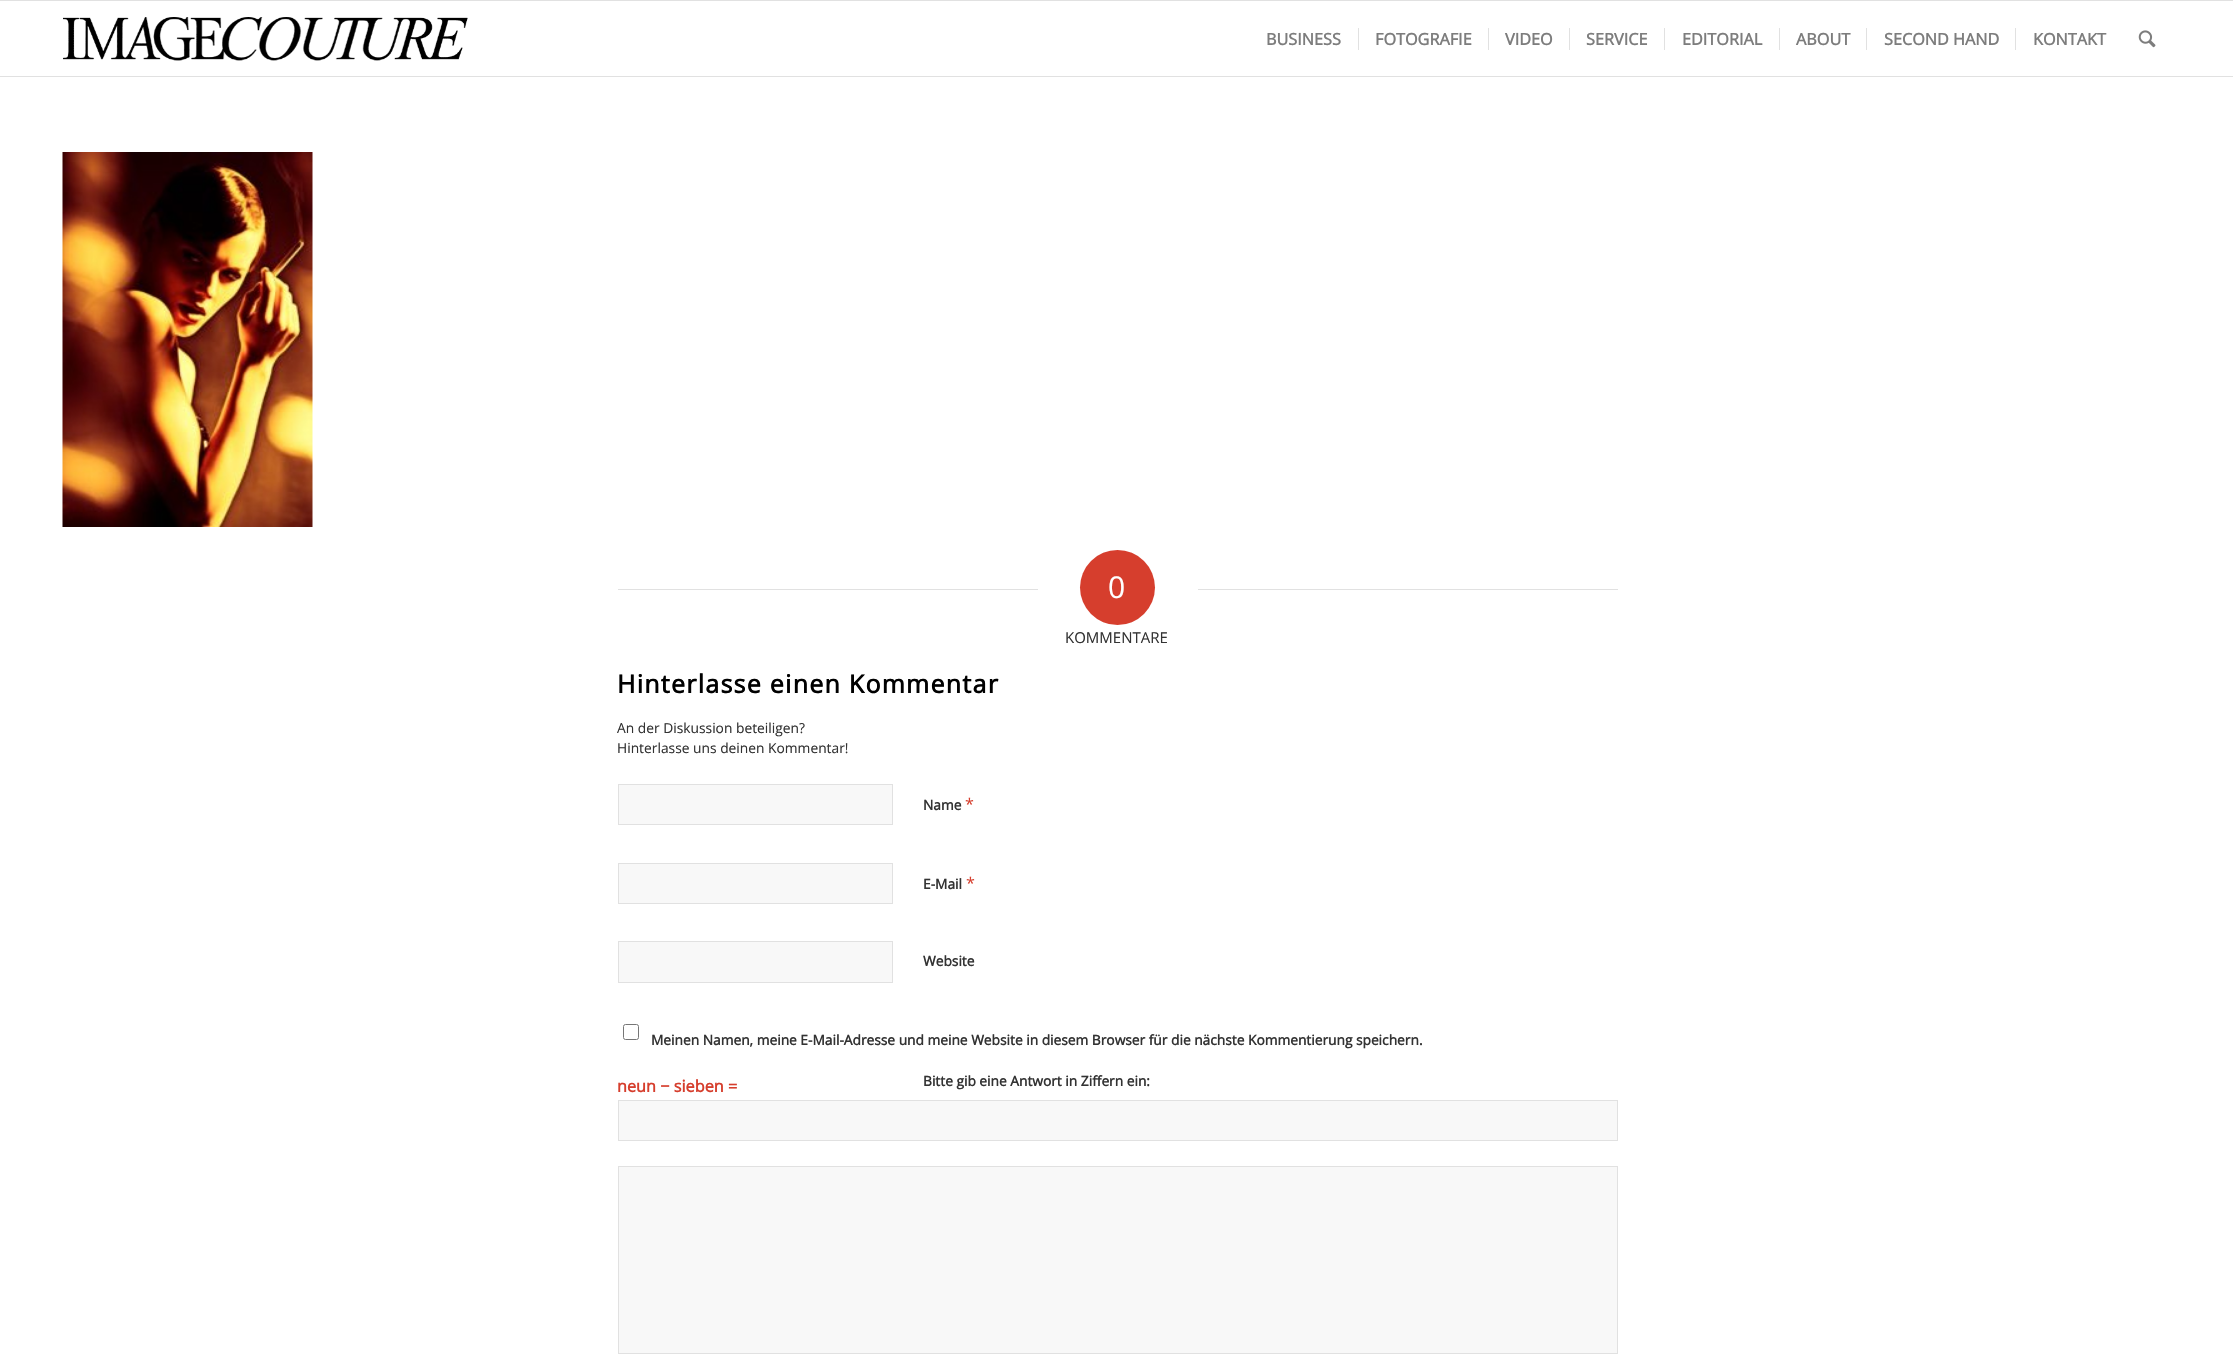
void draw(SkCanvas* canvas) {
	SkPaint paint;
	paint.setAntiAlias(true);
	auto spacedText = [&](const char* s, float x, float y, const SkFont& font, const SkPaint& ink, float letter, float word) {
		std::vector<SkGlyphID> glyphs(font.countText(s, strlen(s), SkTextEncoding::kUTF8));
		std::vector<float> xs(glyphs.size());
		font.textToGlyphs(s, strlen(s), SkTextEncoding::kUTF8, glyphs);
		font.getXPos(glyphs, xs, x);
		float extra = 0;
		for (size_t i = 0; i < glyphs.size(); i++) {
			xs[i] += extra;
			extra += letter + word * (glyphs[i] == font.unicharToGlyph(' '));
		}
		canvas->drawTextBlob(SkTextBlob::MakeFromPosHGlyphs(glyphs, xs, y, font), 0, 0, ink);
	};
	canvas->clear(0xffffffff);
	paint.setColor(0xffe1e1e1);
	canvas->drawRect(SkRect::MakeXYWH(0, 0, 2233, 1), paint);
	canvas->drawRect(SkRect::MakeXYWH(0, 76, 2233, 1), paint);
	canvas->drawImageRect(SkImages::DeferredFromEncodedData(SkData::MakeFromFileName("img1.png")), SkRect::MakeXYWH(63, 17, 405, 44), SkSamplingOptions());
	SkFont f1(fontMgr->matchFamilyStyle("Open Sans", SkFontStyle::Bold()), 16.25);
	f1.setSubpixel(true);
	paint.setColor(0xff7d7d7d);
	canvas->drawString("BUSINESS", 1266, 45, f1, paint);
	canvas->drawString("FOTOGRAFIE", 1375, 45, f1, paint);
	paint.setColor(0xffe1e1e1);
	canvas->drawRect(SkRect::MakeXYWH(1358, 28, 1, 22), paint);
	paint.setColor(0xff7d7d7d);
	canvas->drawString("VIDEO", 1505, 45, f1, paint);
	paint.setColor(0xffe1e1e1);
	canvas->drawRect(SkRect::MakeXYWH(1488, 28, 1, 22), paint);
	paint.setColor(0xff7d7d7d);
	canvas->drawString("SERVICE", 1586, 45, f1, paint);
	paint.setColor(0xffe1e1e1);
	canvas->drawRect(SkRect::MakeXYWH(1569, 28, 1, 22), paint);
	paint.setColor(0xff7d7d7d);
	canvas->drawString("EDITORIAL", 1682, 45, f1, paint);
	paint.setColor(0xffe1e1e1);
	canvas->drawRect(SkRect::MakeXYWH(1664, 28, 1, 22), paint);
	paint.setColor(0xff7d7d7d);
	canvas->drawString("ABOUT", 1796, 45, f1, paint);
	paint.setColor(0xffe1e1e1);
	canvas->drawRect(SkRect::MakeXYWH(1779, 28, 1, 22), paint);
	paint.setColor(0xff7d7d7d);
	canvas->drawString("SECOND HAND", 1884, 45, f1, paint);
	paint.setColor(0xffe1e1e1);
	canvas->drawRect(SkRect::MakeXYWH(1866, 28, 1, 22), paint);
	paint.setColor(0xff7d7d7d);
	canvas->drawString("KONTAKT", 2033, 45, f1, paint);
	paint.setColor(0xffe1e1e1);
	canvas->drawRect(SkRect::MakeXYWH(2015, 28, 1, 22), paint);
	canvas->drawImageRect(SkImages::DeferredFromEncodedData(SkData::MakeFromFileName("img2.png")), SkRect::MakeXYWH(2138, 30, 18, 18), SkSamplingOptions());
	canvas->drawImageRect(SkImages::DeferredFromEncodedData(SkData::MakeFromFileName("img3.png")), SkRect::MakeXYWH(62, 152, 251, 375), SkSamplingOptions());
	canvas->drawRect(SkRect::MakeXYWH(618, 589, 420, 1), paint);
	paint.setColor(0xffd63e2d);
	canvas->drawCircle(1117.5, 587.5, 37.5, paint);
	SkFont f2(fontMgr->matchFamilyStyle("Open Sans", SkFontStyle::Normal()), 30);
	f2.setSubpixel(true);
	paint.setColor(0xffffffff);
	canvas->drawString("0", 1108, 598, f2, paint);
	paint.setColor(0xffe1e1e1);
	canvas->drawRect(SkRect::MakeXYWH(1198, 589, 420, 1), paint);
	SkFont f3(fontMgr->matchFamilyStyle("Open Sans", SkFontStyle::Normal()), 15);
	f3.setSubpixel(true);
	paint.setColor(0xff333333);
	canvas->drawString("KOMMENTARE", 1065, 643, f3, paint);
	SkFont f4(fontMgr->matchFamilyStyle("Open Sans", SkFontStyle::Bold()), 25);
	f4.setSubpixel(true);
	paint.setColor(0xff000000);
	spacedText("Hinterlasse einen Kommentar", 617, 693, f4, paint, 1.25, 0);
	SkFont f5(fontMgr->matchFamilyStyle("Open Sans", SkFontStyle::Normal()), 13.8);
	f5.setSubpixel(true);
	paint.setColor(0xff333333);
	canvas->drawString("An der Diskussion beteiligen?", 617, 733, f5, paint);
	canvas->drawString("Hinterlasse uns deinen Kommentar!", 617, 753, f5, paint);
	paint.setColor(0xfff8f8f8);
	canvas->drawRect(SkRect::MakeXYWH(618.5, 784.5, 274, 40), paint);
	paint.setStroke(true);
	paint.setStrokeWidth(1);
	paint.setColor(0xffe1e1e1);
	canvas->drawRect(SkRect::MakeXYWH(618.5, 784.5, 274, 40), paint);
	SkFont f6(fontMgr->matchFamilyStyle("Open Sans", SkFontStyle::Bold()), 13.75);
	f6.setSubpixel(true);
	paint.setStroke(false);
	paint.setColor(0xff333333);
	canvas->drawString("Name", 923, 810, f6, paint);
	SkFont f7(fontMgr->matchFamilyStyle("Open Sans", SkFontStyle::Normal()), 16.25);
	f7.setSubpixel(true);
	paint.setColor(0xffd63e2d);
	canvas->drawString("*", 965, 810, f7, paint);
	paint.setColor(0xfff8f8f8);
	canvas->drawRect(SkRect::MakeXYWH(618.5, 863.5, 274, 40), paint);
	paint.setStroke(true);
	paint.setColor(0xffe1e1e1);
	canvas->drawRect(SkRect::MakeXYWH(618.5, 863.5, 274, 40), paint);
	paint.setStroke(false);
	paint.setColor(0xff333333);
	canvas->drawString("E-Mail", 923, 889, f6, paint);
	paint.setColor(0xffd63e2d);
	canvas->drawString("*", 966, 889, f7, paint);
	paint.setColor(0xfff8f8f8);
	canvas->drawRect(SkRect::MakeXYWH(618.5, 941.5, 274, 41), paint);
	paint.setStroke(true);
	paint.setColor(0xffe1e1e1);
	canvas->drawRect(SkRect::MakeXYWH(618.5, 941.5, 274, 41), paint);
	paint.setStroke(false);
	paint.setColor(0xff333333);
	canvas->drawString("Website", 923, 966, f6, paint);
	paint.setStroke(true);
	paint.setColor(0xff767676);
	canvas->drawRoundRect(SkRect::MakeXYWH(623.5, 1024.5, 15, 15), 2, 2, paint);
	paint.setStroke(false);
	paint.setColor(0xff333333);
	canvas->drawString("Meinen Namen, meine E-Mail-Adresse und meine Website in diesem Browser für die nächste Kommentierung speichern.", 651, 1045, f6, paint);
	paint.setColor(0xffd63e2d);
	canvas->drawString("neun − sieben =", 617, 1092, f1, paint);
	paint.setColor(0xfff8f8f8);
	canvas->drawRect(SkRect::MakeXYWH(618.5, 1100.5, 999, 40), paint);
	paint.setStroke(true);
	paint.setColor(0xffe1e1e1);
	canvas->drawRect(SkRect::MakeXYWH(618.5, 1100.5, 999, 40), paint);
	paint.setStroke(false);
	paint.setColor(0xff333333);
	canvas->drawString("Bitte gib eine Antwort in Ziffern ein:", 923, 1086, f6, paint);
	paint.setColor(0xfff8f8f8);
	canvas->drawRect(SkRect::MakeXYWH(618.5, 1166.5, 999, 187), paint);
	paint.setStroke(true);
	paint.setColor(0xffe1e1e1);
	canvas->drawRect(SkRect::MakeXYWH(618.5, 1166.5, 999, 187), paint);
}
